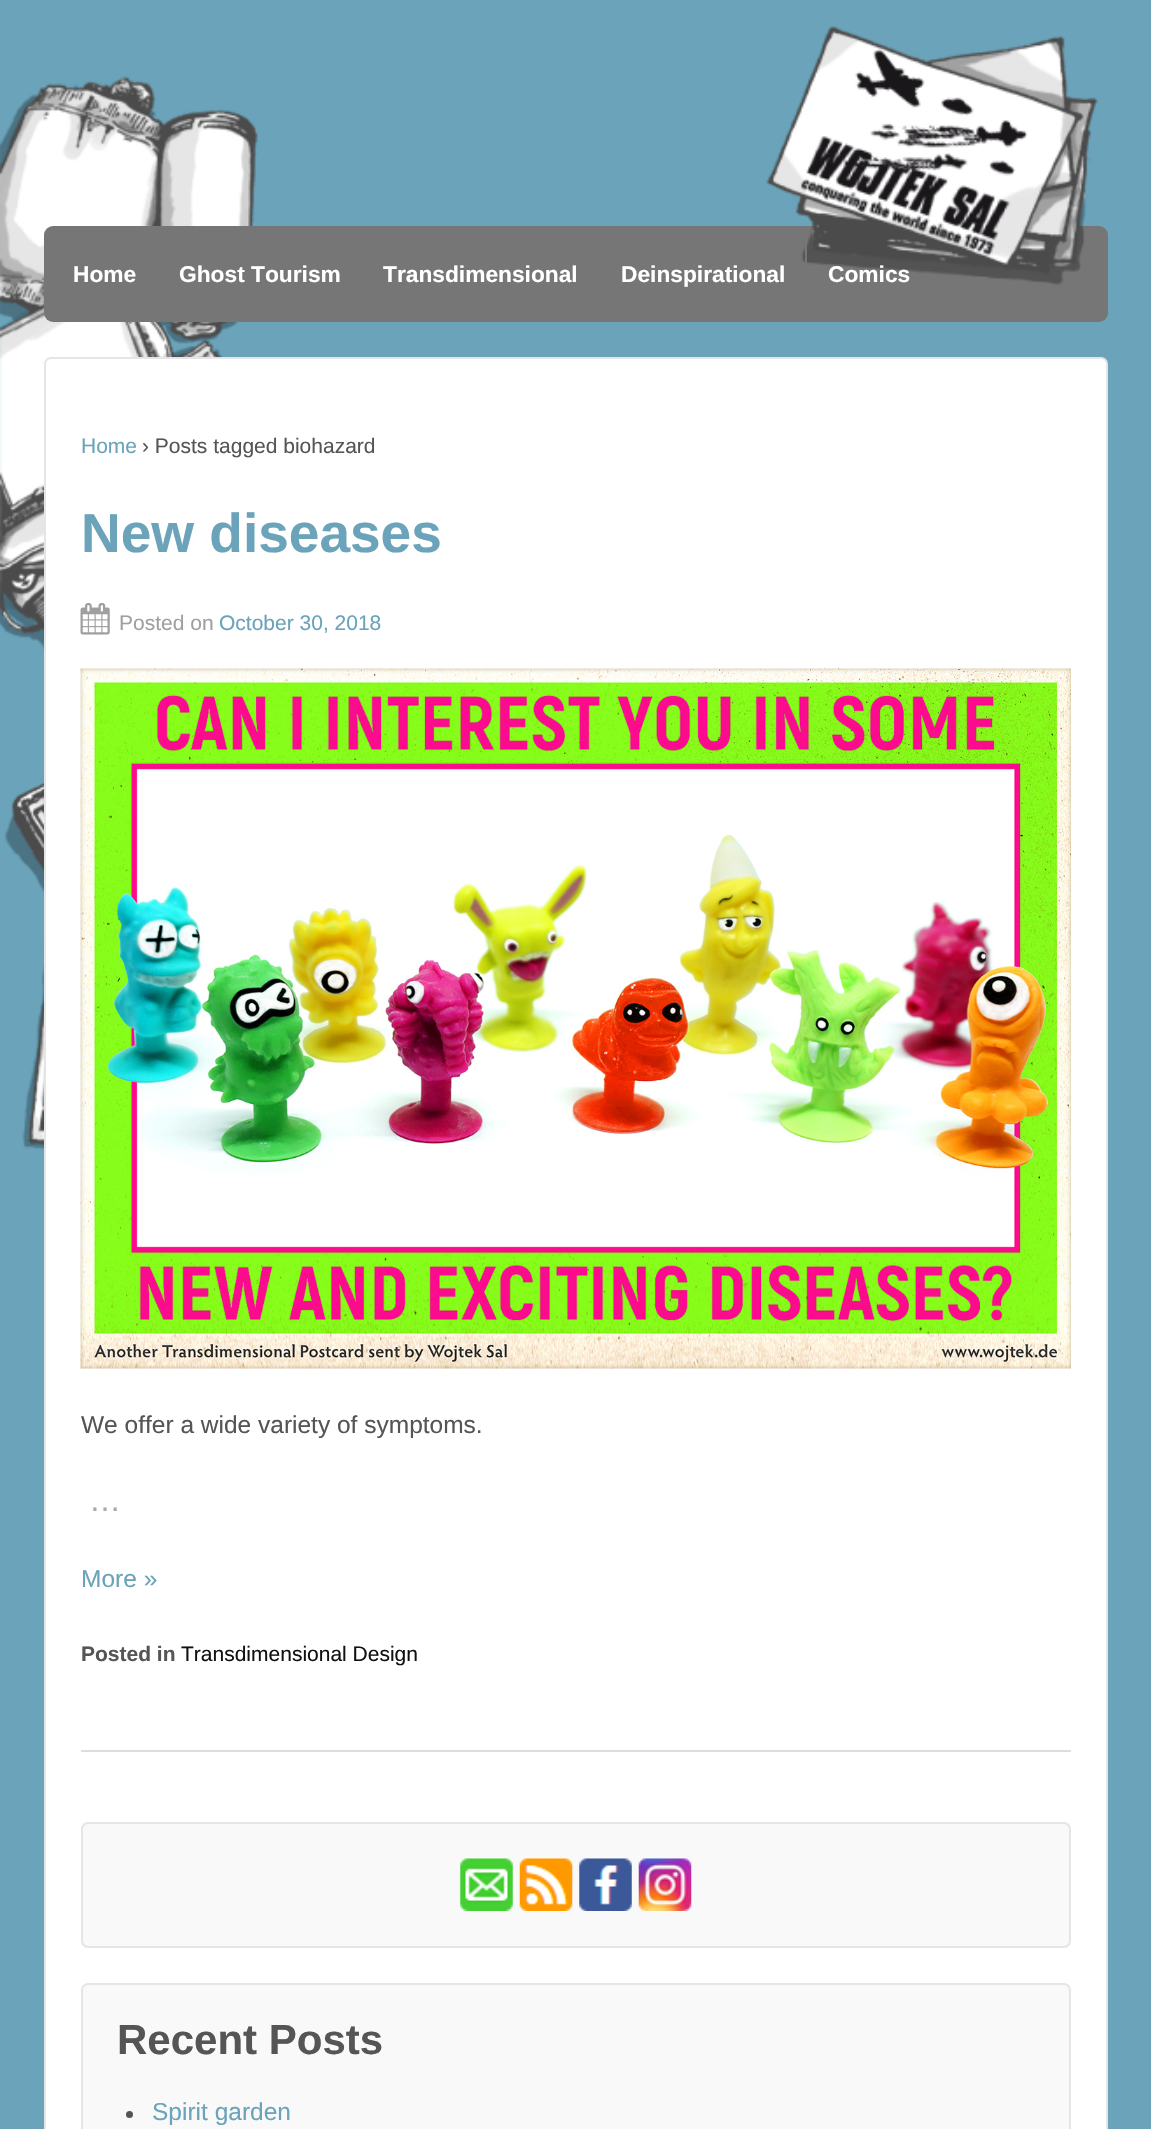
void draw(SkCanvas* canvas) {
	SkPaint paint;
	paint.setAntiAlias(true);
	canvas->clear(0xff6aa3ba);
	canvas->drawImageRect(SkImages::DeferredFromEncodedData(SkData::MakeFromFileName("img1.png")), SkRect::MakeXYWH(0, 76, 325, 1141), SkSamplingOptions());
	paint.setColor(0xff767676);
	canvas->drawRoundRect(SkRect::MakeXYWH(44, 226, 1064, 96), 9, 9, paint);
	SkFont f1(fontMgr->matchFamilyStyle("Liberation Sans", SkFontStyle::Bold()), 22.75);
	f1.setSubpixel(true);
	paint.setColor(0xffffffff);
	canvas->drawString("Home", 73, 282, f1, paint);
	canvas->drawString("Ghost Tourism", 179, 282, f1, paint);
	canvas->drawString("Transdimensional", 383, 282, f1, paint);
	canvas->drawImageRect(SkImages::DeferredFromEncodedData(SkData::MakeFromFileName("img2.png")), SkRect::MakeXYWH(766, 26, 332, 260), SkSamplingOptions());
	canvas->drawString("Deinspirational", 621, 282, f1, paint);
	paint.setColor(0xff767676);
	canvas->drawRect(SkRect::MakeXYWH(805, 235, 2, 29), paint);
	paint.setColor(0xffffffff);
	canvas->drawString("Comics", 828, 282, f1, paint);
	canvas->drawRoundRect(SkRect::MakeXYWH(45, 358, 1062, 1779), 6, 6, paint);
	paint.setStroke(true);
	paint.setStrokeWidth(2);
	paint.setColor(0xffe5e5e5);
	canvas->drawRoundRect(SkRect::MakeXYWH(45, 358, 1062, 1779), 6, 6, paint);
	SkFont f2(fontMgr->matchFamilyStyle("Liberation Sans", SkFontStyle::Normal()), 21);
	f2.setSubpixel(true);
	paint.setStroke(false);
	paint.setColor(0xff6aa3ba);
	canvas->drawString("Home", 81, 453, f2, paint);
	paint.setColor(0xff555555);
	canvas->drawString("› Posts tagged biohazard", 142, 453, f2, paint);
	SkFont f3(fontMgr->matchFamilyStyle("Liberation Sans", SkFontStyle::Bold()), 55);
	f3.setSubpixel(true);
	paint.setColor(0xff6aa3ba);
	canvas->drawString("New diseases", 81, 552, f3, paint);
	canvas->drawImageRect(SkImages::DeferredFromEncodedData(SkData::MakeFromFileName("img3.png")), SkRect::MakeXYWH(80, 603, 30, 32), SkSamplingOptions());
	paint.setColor(0xff9f9f9f);
	canvas->drawString("Posted on", 119, 630, f2, paint);
	paint.setColor(0xff6aa3ba);
	canvas->drawString("October 30, 2018", 219, 630, f2, paint);
	canvas->drawImageRect(SkImages::DeferredFromEncodedData(SkData::MakeFromFileName("img4.png")), SkRect::MakeXYWH(80, 668, 991, 701), SkSamplingOptions());
	SkFont f4(fontMgr->matchFamilyStyle("Liberation Sans", SkFontStyle::Normal()), 24.5);
	f4.setSubpixel(true);
	paint.setColor(0xff555555);
	canvas->drawString("We offer a wide variety of symptoms.", 81, 1433, f4, paint);
	SkFont f5(fontMgr->matchFamilyStyle("Liberation Sans", SkFontStyle::Normal()), 32);
	f5.setSubpixel(true);
	paint.setColor(0xffaaaaaa);
	canvas->drawString("…", 89, 1511, f5, paint);
	paint.setColor(0xff6aa3ba);
	canvas->drawString("More »", 81, 1587, f4, paint);
	SkFont f6(fontMgr->matchFamilyStyle("Liberation Sans", SkFontStyle::Bold()), 21);
	f6.setSubpixel(true);
	paint.setColor(0xff555555);
	canvas->drawString("Posted in", 81, 1661, f6, paint);
	paint.setColor(0xff111111);
	canvas->drawString("Transdimensional Design", 181, 1661, f2, paint);
	paint.setColor(0xffdddddd);
	canvas->drawRect(SkRect::MakeXYWH(81, 1750, 990, 2), paint);
	paint.setColor(0xfff9f9f9);
	canvas->drawRoundRect(SkRect::MakeXYWH(82, 1823, 988, 124), 6, 6, paint);
	paint.setStroke(true);
	paint.setColor(0xffe5e5e5);
	canvas->drawRoundRect(SkRect::MakeXYWH(82, 1823, 988, 124), 6, 6, paint);
	canvas->drawImageRect(SkImages::DeferredFromEncodedData(SkData::MakeFromFileName("img5.png")), SkRect::MakeXYWH(460, 1858, 53, 53), SkSamplingOptions());
	canvas->drawImageRect(SkImages::DeferredFromEncodedData(SkData::MakeFromFileName("img6.png")), SkRect::MakeXYWH(519, 1858, 54, 53), SkSamplingOptions());
	canvas->drawImageRect(SkImages::DeferredFromEncodedData(SkData::MakeFromFileName("img7.png")), SkRect::MakeXYWH(579, 1858, 53, 53), SkSamplingOptions());
	canvas->drawImageRect(SkImages::DeferredFromEncodedData(SkData::MakeFromFileName("img8.png")), SkRect::MakeXYWH(638, 1858, 54, 53), SkSamplingOptions());
	paint.setStroke(false);
	paint.setColor(0xfff9f9f9);
	canvas->drawRoundRect(SkRect::MakeXYWH(82, 1984, 988, 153), 6, 6, paint);
	paint.setStroke(true);
	paint.setColor(0xffe5e5e5);
	canvas->drawRoundRect(SkRect::MakeXYWH(82, 1984, 988, 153), 6, 6, paint);
	SkFont f7(fontMgr->matchFamilyStyle("Liberation Sans", SkFontStyle::Bold()), 42);
	f7.setSubpixel(true);
	paint.setStroke(false);
	paint.setColor(0xff555555);
	canvas->drawString("Recent Posts", 117, 2054, f7, paint);
	canvas->drawCircle(129.5, 2114.5, 3.5, paint);
	paint.setColor(0xff6aa3ba);
	canvas->drawString("Spirit garden", 152, 2120, f4, paint);
}
